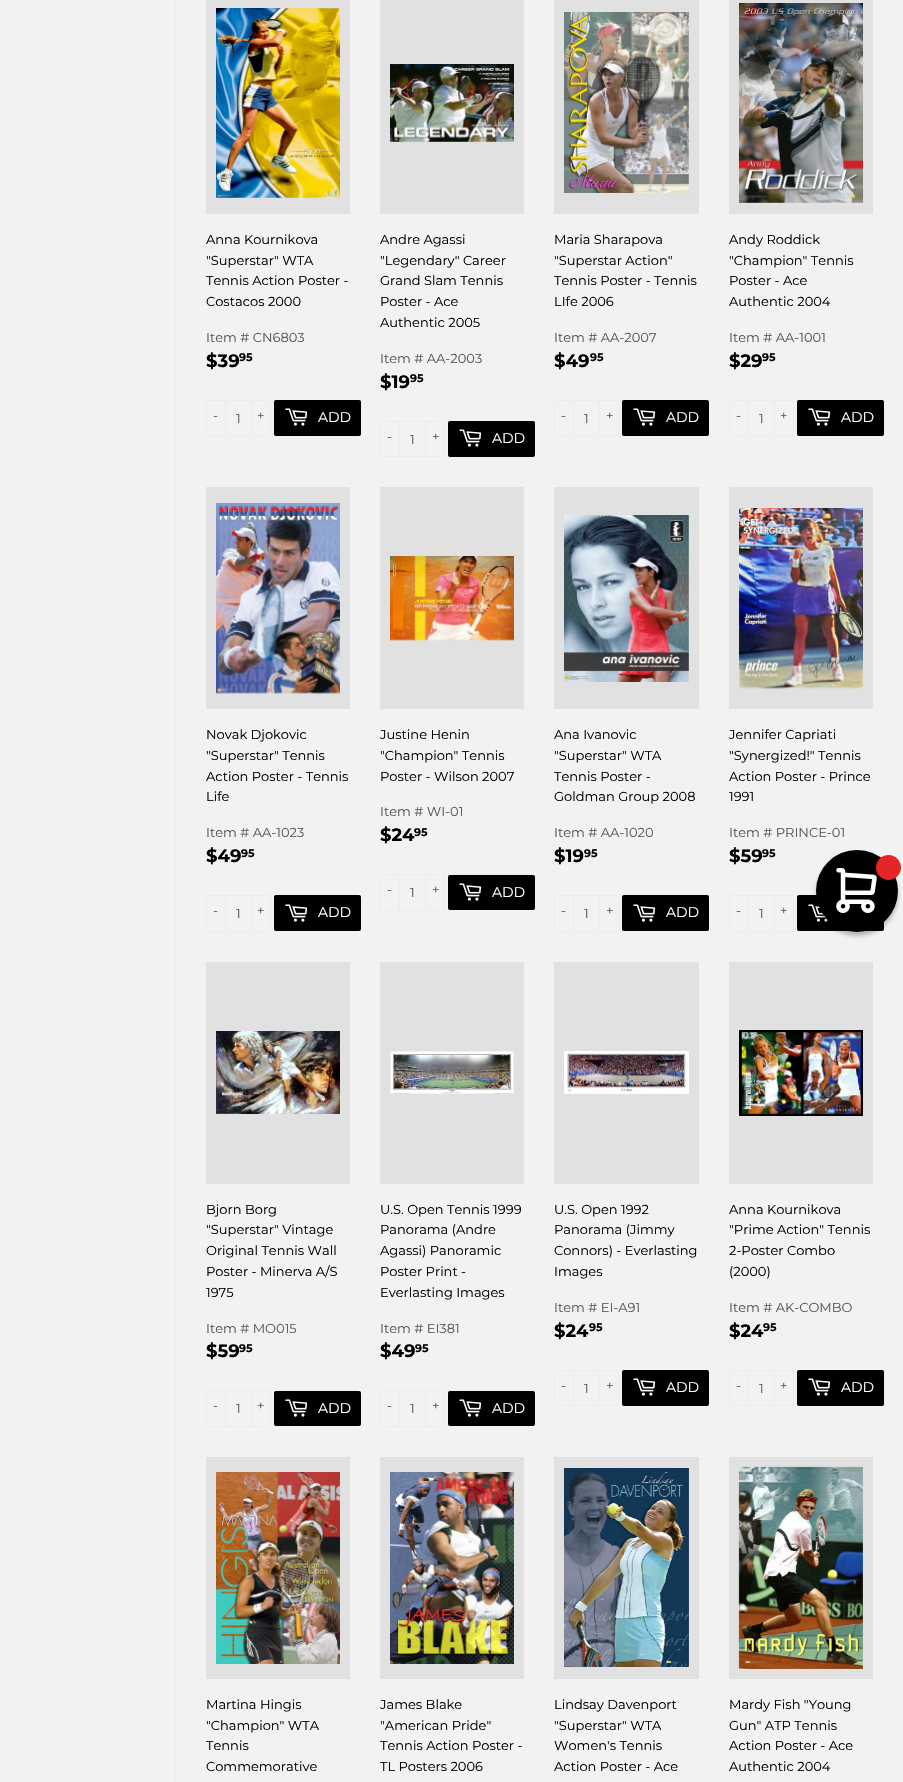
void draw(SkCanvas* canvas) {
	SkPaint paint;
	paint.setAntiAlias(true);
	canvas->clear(0xfff2f2f2);
	paint.setColor(0xffececec);
	canvas->drawRect(SkRect::MakeXYWH(175, 0, 1, 1782), paint);
	paint.setColor(0xffe1e1e1);
	canvas->drawRect(SkRect::MakeXYWH(206, 0, 144, 214), paint);
	canvas->drawImageRect(SkImages::DeferredFromEncodedData(SkData::MakeFromFileName("img1.png")), SkRect::MakeXYWH(216, 8, 124, 190), SkSamplingOptions());
	SkFont f1(fontMgr->matchFamilyStyle("Montserrat", SkFontStyle::Normal()), 13);
	f1.setSubpixel(true);
	paint.setColor(0xff000000);
	canvas->drawString("Anna Kournikova", 206, 244, f1, paint);
	canvas->drawString("\"Superstar\" WTA", 206, 265, f1, paint);
	canvas->drawString("Tennis Action Poster -", 206, 285, f1, paint);
	canvas->drawString("Costacos 2000", 206, 306, f1, paint);
	paint.setColor(0xff585858);
	canvas->drawString("Item # CN6803", 206, 342, f1, paint);
	SkFont f2(fontMgr->matchFamilyStyle("Montserrat", SkFontStyle::Bold()), 18);
	f2.setSubpixel(true);
	paint.setColor(0xff000000);
	canvas->drawString("$39", 206, 367, f2, paint);
	SkFont f3(fontMgr->matchFamilyStyle("Montserrat", SkFontStyle::Bold()), 11);
	f3.setSubpixel(true);
	canvas->drawString("95", 239, 361, f3, paint);
	paint.setStroke(true);
	paint.setStrokeWidth(1);
	paint.setColor(0xffececec);
	canvas->drawRoundRect(SkRect::MakeXYWH(206.5, 400.5, 64, 35), 1.5, 1.5, paint);
	paint.setStroke(false);
	canvas->drawRect(SkRect::MakeXYWH(225, 400, 1, 36), paint);
	paint.setColor(0xff585858);
	canvas->drawString("-", 213, 420, f1, paint);
	canvas->drawString("1", 236, 423, f1, paint);
	paint.setColor(0xffececec);
	canvas->drawRect(SkRect::MakeXYWH(251, 400, 1, 36), paint);
	paint.setColor(0xff585858);
	canvas->drawString("+", 257, 420, f1, paint);
	paint.setColor(0xff000000);
	canvas->drawRoundRect(SkRect::MakeXYWH(274, 400, 87, 36), 2, 2, paint);
	canvas->drawImageRect(SkImages::DeferredFromEncodedData(SkData::MakeFromFileName("img2.png")), SkRect::MakeXYWH(285, 408, 23, 18), SkSamplingOptions());
	SkFont f4(fontMgr->matchFamilyStyle("Montserrat", SkFontStyle::Normal()), 14);
	f4.setSubpixel(true);
	paint.setColor(0xffffffff);
	canvas->drawString("ADD", 318, 422, f4, paint);
	paint.setColor(0xffe1e1e1);
	canvas->drawRect(SkRect::MakeXYWH(380, 0, 144, 214), paint);
	canvas->drawImageRect(SkImages::DeferredFromEncodedData(SkData::MakeFromFileName("img3.png")), SkRect::MakeXYWH(390, 64, 124, 78), SkSamplingOptions());
	paint.setColor(0xff000000);
	canvas->drawString("Andre Agassi", 380, 244, f1, paint);
	canvas->drawString("\"Legendary\" Career", 380, 265, f1, paint);
	canvas->drawString("Grand Slam Tennis", 380, 285, f1, paint);
	canvas->drawString("Poster - Ace", 380, 306, f1, paint);
	canvas->drawString("Authentic 2005", 380, 327, f1, paint);
	paint.setColor(0xff585858);
	canvas->drawString("Item # AA-2003", 380, 363, f1, paint);
	paint.setColor(0xff000000);
	canvas->drawString("$19", 380, 388, f2, paint);
	canvas->drawString("95", 410, 382, f3, paint);
	paint.setStroke(true);
	paint.setColor(0xffececec);
	canvas->drawRoundRect(SkRect::MakeXYWH(380.5, 421.5, 64, 35), 1.5, 1.5, paint);
	paint.setStroke(false);
	canvas->drawRect(SkRect::MakeXYWH(399, 421, 1, 36), paint);
	paint.setColor(0xff585858);
	canvas->drawString("-", 387, 441, f1, paint);
	canvas->drawString("1", 410, 444, f1, paint);
	paint.setColor(0xffececec);
	canvas->drawRect(SkRect::MakeXYWH(425, 421, 1, 36), paint);
	paint.setColor(0xff585858);
	canvas->drawString("+", 432, 441, f1, paint);
	paint.setColor(0xff000000);
	canvas->drawRoundRect(SkRect::MakeXYWH(448, 421, 87, 36), 2, 2, paint);
	canvas->drawImageRect(SkImages::DeferredFromEncodedData(SkData::MakeFromFileName("img2.png")), SkRect::MakeXYWH(459, 429, 23, 18), SkSamplingOptions());
	paint.setColor(0xffffffff);
	canvas->drawString("ADD", 492, 443, f4, paint);
	paint.setColor(0xffe1e1e1);
	canvas->drawRect(SkRect::MakeXYWH(554, 0, 145, 214), paint);
	canvas->drawImageRect(SkImages::DeferredFromEncodedData(SkData::MakeFromFileName("img4.png")), SkRect::MakeXYWH(564, 12, 125, 181), SkSamplingOptions());
	paint.setColor(0xff000000);
	canvas->drawString("Maria Sharapova", 554, 244, f1, paint);
	canvas->drawString("\"Superstar Action\"", 554, 265, f1, paint);
	canvas->drawString("Tennis Poster - Tennis", 554, 285, f1, paint);
	canvas->drawString("LIfe 2006", 554, 306, f1, paint);
	paint.setColor(0xff585858);
	canvas->drawString("Item # AA-2007", 554, 342, f1, paint);
	paint.setColor(0xff000000);
	canvas->drawString("$49", 554, 367, f2, paint);
	canvas->drawString("95", 590, 361, f3, paint);
	paint.setStroke(true);
	paint.setColor(0xffececec);
	canvas->drawRoundRect(SkRect::MakeXYWH(554.5, 400.5, 64, 35), 1.5, 1.5, paint);
	paint.setStroke(false);
	canvas->drawRect(SkRect::MakeXYWH(573, 400, 1, 36), paint);
	paint.setColor(0xff585858);
	canvas->drawString("-", 561, 420, f1, paint);
	canvas->drawString("1", 584, 423, f1, paint);
	paint.setColor(0xffececec);
	canvas->drawRect(SkRect::MakeXYWH(599, 400, 1, 36), paint);
	paint.setColor(0xff585858);
	canvas->drawString("+", 606, 420, f1, paint);
	paint.setColor(0xff000000);
	canvas->drawRoundRect(SkRect::MakeXYWH(622, 400, 87, 36), 2, 2, paint);
	canvas->drawImageRect(SkImages::DeferredFromEncodedData(SkData::MakeFromFileName("img2.png")), SkRect::MakeXYWH(633, 408, 23, 18), SkSamplingOptions());
	paint.setColor(0xffffffff);
	canvas->drawString("ADD", 666, 422, f4, paint);
	paint.setColor(0xffe1e1e1);
	canvas->drawRect(SkRect::MakeXYWH(729, 0, 144, 214), paint);
	canvas->drawImageRect(SkImages::DeferredFromEncodedData(SkData::MakeFromFileName("img5.png")), SkRect::MakeXYWH(739, 3, 124, 200), SkSamplingOptions());
	paint.setColor(0xff000000);
	canvas->drawString("Andy Roddick", 729, 244, f1, paint);
	canvas->drawString("\"Champion\" Tennis", 729, 265, f1, paint);
	canvas->drawString("Poster - Ace", 729, 285, f1, paint);
	canvas->drawString("Authentic 2004", 729, 306, f1, paint);
	paint.setColor(0xff585858);
	canvas->drawString("Item # AA-1001", 729, 342, f1, paint);
	paint.setColor(0xff000000);
	canvas->drawString("$29", 729, 367, f2, paint);
	canvas->drawString("95", 762, 361, f3, paint);
	paint.setStroke(true);
	paint.setColor(0xffececec);
	canvas->drawRoundRect(SkRect::MakeXYWH(729.5, 400.5, 64, 35), 1.5, 1.5, paint);
	paint.setStroke(false);
	canvas->drawRect(SkRect::MakeXYWH(748, 400, 1, 36), paint);
	paint.setColor(0xff585858);
	canvas->drawString("-", 736, 420, f1, paint);
	canvas->drawString("1", 759, 423, f1, paint);
	paint.setColor(0xffececec);
	canvas->drawRect(SkRect::MakeXYWH(774, 400, 1, 36), paint);
	paint.setColor(0xff585858);
	canvas->drawString("+", 780, 420, f1, paint);
	paint.setColor(0xff000000);
	canvas->drawRoundRect(SkRect::MakeXYWH(797, 400, 87, 36), 2, 2, paint);
	canvas->drawImageRect(SkImages::DeferredFromEncodedData(SkData::MakeFromFileName("img2.png")), SkRect::MakeXYWH(808, 408, 23, 18), SkSamplingOptions());
	paint.setColor(0xffffffff);
	canvas->drawString("ADD", 841, 422, f4, paint);
	paint.setColor(0xffe1e1e1);
	canvas->drawRect(SkRect::MakeXYWH(206, 487, 144, 222), paint);
	canvas->drawImageRect(SkImages::DeferredFromEncodedData(SkData::MakeFromFileName("img6.png")), SkRect::MakeXYWH(216, 503, 124, 191), SkSamplingOptions());
	paint.setColor(0xff000000);
	canvas->drawString("Novak Djokovic", 206, 739, f1, paint);
	canvas->drawString("\"Superstar\" Tennis", 206, 760, f1, paint);
	canvas->drawString("Action Poster - Tennis", 206, 781, f1, paint);
	canvas->drawString("Life", 206, 801, f1, paint);
	paint.setColor(0xff585858);
	canvas->drawString("Item # AA-1023", 206, 837, f1, paint);
	paint.setColor(0xff000000);
	canvas->drawString("$49", 206, 862, f2, paint);
	canvas->drawString("95", 241, 857, f3, paint);
	paint.setStroke(true);
	paint.setColor(0xffececec);
	canvas->drawRoundRect(SkRect::MakeXYWH(206.5, 895.5, 64, 36), 1.5, 1.5, paint);
	paint.setStroke(false);
	canvas->drawRect(SkRect::MakeXYWH(225, 895, 1, 37), paint);
	paint.setColor(0xff585858);
	canvas->drawString("-", 213, 915, f1, paint);
	canvas->drawString("1", 236, 918, f1, paint);
	paint.setColor(0xffececec);
	canvas->drawRect(SkRect::MakeXYWH(251, 895, 1, 37), paint);
	paint.setColor(0xff585858);
	canvas->drawString("+", 257, 915, f1, paint);
	paint.setColor(0xff000000);
	canvas->drawRoundRect(SkRect::MakeXYWH(274, 895, 87, 36), 2, 2, paint);
	canvas->drawImageRect(SkImages::DeferredFromEncodedData(SkData::MakeFromFileName("img2.png")), SkRect::MakeXYWH(285, 904, 23, 18), SkSamplingOptions());
	paint.setColor(0xffffffff);
	canvas->drawString("ADD", 318, 917, f4, paint);
	paint.setColor(0xffe1e1e1);
	canvas->drawRect(SkRect::MakeXYWH(380, 487, 144, 222), paint);
	canvas->drawImageRect(SkImages::DeferredFromEncodedData(SkData::MakeFromFileName("img7.png")), SkRect::MakeXYWH(390, 556, 124, 85), SkSamplingOptions());
	paint.setColor(0xff000000);
	canvas->drawString("Justine Henin", 380, 739, f1, paint);
	canvas->drawString("\"Champion\" Tennis", 380, 760, f1, paint);
	canvas->drawString("Poster - Wilson 2007", 380, 781, f1, paint);
	paint.setColor(0xff585858);
	canvas->drawString("Item # WI-01", 380, 816, f1, paint);
	paint.setColor(0xff000000);
	canvas->drawString("$24", 380, 841, f2, paint);
	canvas->drawString("95", 414, 836, f3, paint);
	paint.setStroke(true);
	paint.setColor(0xffececec);
	canvas->drawRoundRect(SkRect::MakeXYWH(380.5, 874.5, 64, 36), 1.5, 1.5, paint);
	paint.setStroke(false);
	canvas->drawRect(SkRect::MakeXYWH(399, 874, 1, 37), paint);
	paint.setColor(0xff585858);
	canvas->drawString("-", 387, 894, f1, paint);
	canvas->drawString("1", 410, 897, f1, paint);
	paint.setColor(0xffececec);
	canvas->drawRect(SkRect::MakeXYWH(425, 874, 1, 37), paint);
	paint.setColor(0xff585858);
	canvas->drawString("+", 432, 894, f1, paint);
	paint.setColor(0xff000000);
	canvas->drawRoundRect(SkRect::MakeXYWH(448, 875, 87, 35), 2, 2, paint);
	canvas->drawImageRect(SkImages::DeferredFromEncodedData(SkData::MakeFromFileName("img2.png")), SkRect::MakeXYWH(459, 883, 23, 18), SkSamplingOptions());
	paint.setColor(0xffffffff);
	canvas->drawString("ADD", 492, 897, f4, paint);
	paint.setColor(0xffe1e1e1);
	canvas->drawRect(SkRect::MakeXYWH(554, 487, 145, 222), paint);
	canvas->drawImageRect(SkImages::DeferredFromEncodedData(SkData::MakeFromFileName("img8.png")), SkRect::MakeXYWH(564, 515, 125, 167), SkSamplingOptions());
	paint.setColor(0xff000000);
	canvas->drawString("Ana Ivanovic", 554, 739, f1, paint);
	canvas->drawString("\"Superstar\" WTA", 554, 760, f1, paint);
	canvas->drawString("Tennis Poster -", 554, 781, f1, paint);
	canvas->drawString("Goldman Group 2008", 554, 801, f1, paint);
	paint.setColor(0xff585858);
	canvas->drawString("Item # AA-1020", 554, 837, f1, paint);
	paint.setColor(0xff000000);
	canvas->drawString("$19", 554, 862, f2, paint);
	canvas->drawString("95", 584, 857, f3, paint);
	paint.setStroke(true);
	paint.setColor(0xffececec);
	canvas->drawRoundRect(SkRect::MakeXYWH(554.5, 895.5, 64, 36), 1.5, 1.5, paint);
	paint.setStroke(false);
	canvas->drawRect(SkRect::MakeXYWH(573, 895, 1, 37), paint);
	paint.setColor(0xff585858);
	canvas->drawString("-", 561, 915, f1, paint);
	canvas->drawString("1", 584, 918, f1, paint);
	paint.setColor(0xffececec);
	canvas->drawRect(SkRect::MakeXYWH(599, 895, 1, 37), paint);
	paint.setColor(0xff585858);
	canvas->drawString("+", 606, 915, f1, paint);
	paint.setColor(0xff000000);
	canvas->drawRoundRect(SkRect::MakeXYWH(622, 895, 87, 36), 2, 2, paint);
	canvas->drawImageRect(SkImages::DeferredFromEncodedData(SkData::MakeFromFileName("img2.png")), SkRect::MakeXYWH(633, 904, 23, 18), SkSamplingOptions());
	paint.setColor(0xffffffff);
	canvas->drawString("ADD", 666, 917, f4, paint);
	paint.setColor(0xffe1e1e1);
	canvas->drawRect(SkRect::MakeXYWH(729, 487, 144, 222), paint);
	canvas->drawImageRect(SkImages::DeferredFromEncodedData(SkData::MakeFromFileName("img9.png")), SkRect::MakeXYWH(739, 508, 124, 181), SkSamplingOptions());
	paint.setColor(0xff000000);
	canvas->drawString("Jennifer Capriati", 729, 739, f1, paint);
	canvas->drawString("\"Synergized!\" Tennis", 729, 760, f1, paint);
	canvas->drawString("Action Poster - Prince", 729, 781, f1, paint);
	canvas->drawString("1991", 729, 801, f1, paint);
	paint.setColor(0xff585858);
	canvas->drawString("Item # PRINCE-01", 729, 837, f1, paint);
	paint.setColor(0xff000000);
	canvas->drawString("$59", 729, 862, f2, paint);
	canvas->drawString("95", 762, 857, f3, paint);
	paint.setStroke(true);
	paint.setColor(0xffececec);
	canvas->drawRoundRect(SkRect::MakeXYWH(729.5, 895.5, 64, 36), 1.5, 1.5, paint);
	paint.setStroke(false);
	canvas->drawRect(SkRect::MakeXYWH(748, 895, 1, 37), paint);
	paint.setColor(0xff585858);
	canvas->drawString("-", 736, 915, f1, paint);
	canvas->drawString("1", 759, 918, f1, paint);
	paint.setColor(0xffececec);
	canvas->drawRect(SkRect::MakeXYWH(774, 895, 1, 37), paint);
	paint.setColor(0xff585858);
	canvas->drawString("+", 780, 915, f1, paint);
	paint.setColor(0xff000000);
	canvas->drawRoundRect(SkRect::MakeXYWH(797, 895, 87, 36), 2, 2, paint);
	canvas->drawImageRect(SkImages::DeferredFromEncodedData(SkData::MakeFromFileName("img10.png")), SkRect::MakeXYWH(808, 904, 20, 18), SkSamplingOptions());
	paint.setColor(0xffe1e1e1);
	canvas->drawRect(SkRect::MakeXYWH(206, 962, 144, 222), paint);
	canvas->drawImageRect(SkImages::DeferredFromEncodedData(SkData::MakeFromFileName("img11.png")), SkRect::MakeXYWH(216, 1031, 124, 83), SkSamplingOptions());
	paint.setColor(0xff000000);
	canvas->drawString("Bjorn Borg", 206, 1214, f1, paint);
	canvas->drawString("\"Superstar\" Vintage", 206, 1234, f1, paint);
	canvas->drawString("Original Tennis Wall", 206, 1255, f1, paint);
	canvas->drawString("Poster - Minerva A/S", 206, 1276, f1, paint);
	canvas->drawString("1975", 206, 1297, f1, paint);
	paint.setColor(0xff585858);
	canvas->drawString("Item # MO015", 206, 1333, f1, paint);
	paint.setColor(0xff000000);
	canvas->drawString("$59", 206, 1357, f2, paint);
	canvas->drawString("95", 239, 1352, f3, paint);
	paint.setStroke(true);
	paint.setColor(0xffececec);
	canvas->drawRoundRect(SkRect::MakeXYWH(206.5, 1390.5, 64, 36), 1.5, 1.5, paint);
	paint.setStroke(false);
	canvas->drawRect(SkRect::MakeXYWH(225, 1390, 1, 37), paint);
	paint.setColor(0xff585858);
	canvas->drawString("-", 213, 1410, f1, paint);
	canvas->drawString("1", 236, 1413, f1, paint);
	paint.setColor(0xffececec);
	canvas->drawRect(SkRect::MakeXYWH(251, 1390, 1, 37), paint);
	paint.setColor(0xff585858);
	canvas->drawString("+", 257, 1410, f1, paint);
	paint.setColor(0xff000000);
	canvas->drawRoundRect(SkRect::MakeXYWH(274, 1391, 87, 35), 2, 2, paint);
	canvas->drawImageRect(SkImages::DeferredFromEncodedData(SkData::MakeFromFileName("img2.png")), SkRect::MakeXYWH(285, 1399, 23, 18), SkSamplingOptions());
	paint.setColor(0xffffffff);
	canvas->drawString("ADD", 318, 1413, f4, paint);
	paint.setColor(0xffe1e1e1);
	canvas->drawRect(SkRect::MakeXYWH(380, 962, 144, 222), paint);
	canvas->drawImageRect(SkImages::DeferredFromEncodedData(SkData::MakeFromFileName("img12.png")), SkRect::MakeXYWH(390, 1051, 124, 43), SkSamplingOptions());
	paint.setColor(0xff000000);
	canvas->drawString("U.S. Open Tennis 1999", 380, 1214, f1, paint);
	canvas->drawString("Panorama (Andre", 380, 1234, f1, paint);
	canvas->drawString("Agassi) Panoramic", 380, 1255, f1, paint);
	canvas->drawString("Poster Print -", 380, 1276, f1, paint);
	canvas->drawString("Everlasting Images", 380, 1297, f1, paint);
	paint.setColor(0xff585858);
	canvas->drawString("Item # EI381", 380, 1333, f1, paint);
	paint.setColor(0xff000000);
	canvas->drawString("$49", 380, 1357, f2, paint);
	canvas->drawString("95", 415, 1352, f3, paint);
	paint.setStroke(true);
	paint.setColor(0xffececec);
	canvas->drawRoundRect(SkRect::MakeXYWH(380.5, 1390.5, 64, 36), 1.5, 1.5, paint);
	paint.setStroke(false);
	canvas->drawRect(SkRect::MakeXYWH(399, 1390, 1, 37), paint);
	paint.setColor(0xff585858);
	canvas->drawString("-", 387, 1410, f1, paint);
	canvas->drawString("1", 410, 1413, f1, paint);
	paint.setColor(0xffececec);
	canvas->drawRect(SkRect::MakeXYWH(425, 1390, 1, 37), paint);
	paint.setColor(0xff585858);
	canvas->drawString("+", 432, 1410, f1, paint);
	paint.setColor(0xff000000);
	canvas->drawRoundRect(SkRect::MakeXYWH(448, 1391, 87, 35), 2, 2, paint);
	canvas->drawImageRect(SkImages::DeferredFromEncodedData(SkData::MakeFromFileName("img2.png")), SkRect::MakeXYWH(459, 1399, 23, 18), SkSamplingOptions());
	paint.setColor(0xffffffff);
	canvas->drawString("ADD", 492, 1413, f4, paint);
	paint.setColor(0xffe1e1e1);
	canvas->drawRect(SkRect::MakeXYWH(554, 962, 145, 222), paint);
	canvas->drawImageRect(SkImages::DeferredFromEncodedData(SkData::MakeFromFileName("img13.png")), SkRect::MakeXYWH(564, 1051, 125, 43), SkSamplingOptions());
	paint.setColor(0xff000000);
	canvas->drawString("U.S. Open 1992", 554, 1214, f1, paint);
	canvas->drawString("Panorama (Jimmy", 554, 1234, f1, paint);
	canvas->drawString("Connors) - Everlasting", 554, 1255, f1, paint);
	canvas->drawString("Images", 554, 1276, f1, paint);
	paint.setColor(0xff585858);
	canvas->drawString("Item # EI-A91", 554, 1312, f1, paint);
	paint.setColor(0xff000000);
	canvas->drawString("$24", 554, 1337, f2, paint);
	canvas->drawString("95", 589, 1331, f3, paint);
	paint.setStroke(true);
	paint.setColor(0xffececec);
	canvas->drawRoundRect(SkRect::MakeXYWH(554.5, 1370.5, 64, 35), 1.5, 1.5, paint);
	paint.setStroke(false);
	canvas->drawRect(SkRect::MakeXYWH(573, 1370, 1, 36), paint);
	paint.setColor(0xff585858);
	canvas->drawString("-", 561, 1390, f1, paint);
	canvas->drawString("1", 584, 1393, f1, paint);
	paint.setColor(0xffececec);
	canvas->drawRect(SkRect::MakeXYWH(599, 1370, 1, 36), paint);
	paint.setColor(0xff585858);
	canvas->drawString("+", 606, 1390, f1, paint);
	paint.setColor(0xff000000);
	canvas->drawRoundRect(SkRect::MakeXYWH(622, 1370, 87, 36), 2, 2, paint);
	canvas->drawImageRect(SkImages::DeferredFromEncodedData(SkData::MakeFromFileName("img2.png")), SkRect::MakeXYWH(633, 1378, 23, 18), SkSamplingOptions());
	paint.setColor(0xffffffff);
	canvas->drawString("ADD", 666, 1392, f4, paint);
	paint.setColor(0xffe1e1e1);
	canvas->drawRect(SkRect::MakeXYWH(729, 962, 144, 222), paint);
	canvas->drawImageRect(SkImages::DeferredFromEncodedData(SkData::MakeFromFileName("img14.png")), SkRect::MakeXYWH(739, 1030, 124, 86), SkSamplingOptions());
	paint.setColor(0xff000000);
	canvas->drawString("Anna Kournikova", 729, 1214, f1, paint);
	canvas->drawString("\"Prime Action\" Tennis", 729, 1234, f1, paint);
	canvas->drawString("2-Poster Combo", 729, 1255, f1, paint);
	canvas->drawString("(2000)", 729, 1276, f1, paint);
	paint.setColor(0xff585858);
	canvas->drawString("Item # AK-COMBO", 729, 1312, f1, paint);
	paint.setColor(0xff000000);
	canvas->drawString("$24", 729, 1337, f2, paint);
	canvas->drawString("95", 763, 1331, f3, paint);
	paint.setStroke(true);
	paint.setColor(0xffececec);
	canvas->drawRoundRect(SkRect::MakeXYWH(729.5, 1370.5, 64, 35), 1.5, 1.5, paint);
	paint.setStroke(false);
	canvas->drawRect(SkRect::MakeXYWH(748, 1370, 1, 36), paint);
	paint.setColor(0xff585858);
	canvas->drawString("-", 736, 1390, f1, paint);
	canvas->drawString("1", 759, 1393, f1, paint);
	paint.setColor(0xffececec);
	canvas->drawRect(SkRect::MakeXYWH(774, 1370, 1, 36), paint);
	paint.setColor(0xff585858);
	canvas->drawString("+", 780, 1390, f1, paint);
	paint.setColor(0xff000000);
	canvas->drawRoundRect(SkRect::MakeXYWH(797, 1370, 87, 36), 2, 2, paint);
	canvas->drawImageRect(SkImages::DeferredFromEncodedData(SkData::MakeFromFileName("img2.png")), SkRect::MakeXYWH(808, 1378, 23, 18), SkSamplingOptions());
	paint.setColor(0xffffffff);
	canvas->drawString("ADD", 841, 1392, f4, paint);
	paint.setColor(0xffe1e1e1);
	canvas->drawRect(SkRect::MakeXYWH(206, 1457, 144, 222), paint);
	canvas->drawImageRect(SkImages::DeferredFromEncodedData(SkData::MakeFromFileName("img15.png")), SkRect::MakeXYWH(216, 1472, 124, 192), SkSamplingOptions());
	paint.setColor(0xff000000);
	canvas->drawString("Martina Hingis", 206, 1709, f1, paint);
	canvas->drawString("\"Champion\" WTA", 206, 1730, f1, paint);
	canvas->drawString("Tennis", 206, 1750, f1, paint);
	canvas->drawString("Commemorative", 206, 1771, f1, paint);
	paint.setColor(0xffe1e1e1);
	canvas->drawRect(SkRect::MakeXYWH(380, 1457, 144, 222), paint);
	canvas->drawImageRect(SkImages::DeferredFromEncodedData(SkData::MakeFromFileName("img16.png")), SkRect::MakeXYWH(390, 1472, 124, 192), SkSamplingOptions());
	paint.setColor(0xff000000);
	canvas->drawString("James Blake", 380, 1709, f1, paint);
	canvas->drawString("\"American Pride\"", 380, 1730, f1, paint);
	canvas->drawString("Tennis Action Poster -", 380, 1750, f1, paint);
	canvas->drawString("TL Posters 2006", 380, 1771, f1, paint);
	paint.setColor(0xffe1e1e1);
	canvas->drawRect(SkRect::MakeXYWH(554, 1457, 145, 222), paint);
	canvas->drawImageRect(SkImages::DeferredFromEncodedData(SkData::MakeFromFileName("img17.png")), SkRect::MakeXYWH(564, 1468, 125, 199), SkSamplingOptions());
	paint.setColor(0xff000000);
	canvas->drawString("Lindsay Davenport", 554, 1709, f1, paint);
	canvas->drawString("\"Superstar\" WTA", 554, 1730, f1, paint);
	canvas->drawString("Women's Tennis", 554, 1750, f1, paint);
	canvas->drawString("Action Poster - Ace", 554, 1771, f1, paint);
	paint.setColor(0xffe1e1e1);
	canvas->drawRect(SkRect::MakeXYWH(729, 1457, 144, 222), paint);
	canvas->drawImageRect(SkImages::DeferredFromEncodedData(SkData::MakeFromFileName("img18.png")), SkRect::MakeXYWH(738, 1466, 125, 203), SkSamplingOptions());
	paint.setColor(0xff000000);
	canvas->drawString("Mardy Fish \"Young", 729, 1709, f1, paint);
	canvas->drawString("Gun\" ATP Tennis", 729, 1730, f1, paint);
	canvas->drawString("Action Poster - Ace", 729, 1750, f1, paint);
	canvas->drawString("Authentic 2004", 729, 1771, f1, paint);
	paint.setColor(0x40000000);
	paint.setMaskFilter(SkMaskFilter::MakeBlur(kNormal_SkBlurStyle, 2));
	canvas->drawRoundRect(SkRect::MakeXYWH(816, 854, 82, 82), 41, 41, paint);
	paint.setMaskFilter(nullptr);
	paint.setColor(0xff000000);
	canvas->drawCircle(857, 891, 41, paint);
	paint.setColor(0xffe42626);
	canvas->drawCircle(888.5, 867.5, 12.5, paint);
	canvas->drawImageRect(SkImages::DeferredFromEncodedData(SkData::MakeFromFileName("img19.png")), SkRect::MakeXYWH(836, 868, 41, 45), SkSamplingOptions());
}
